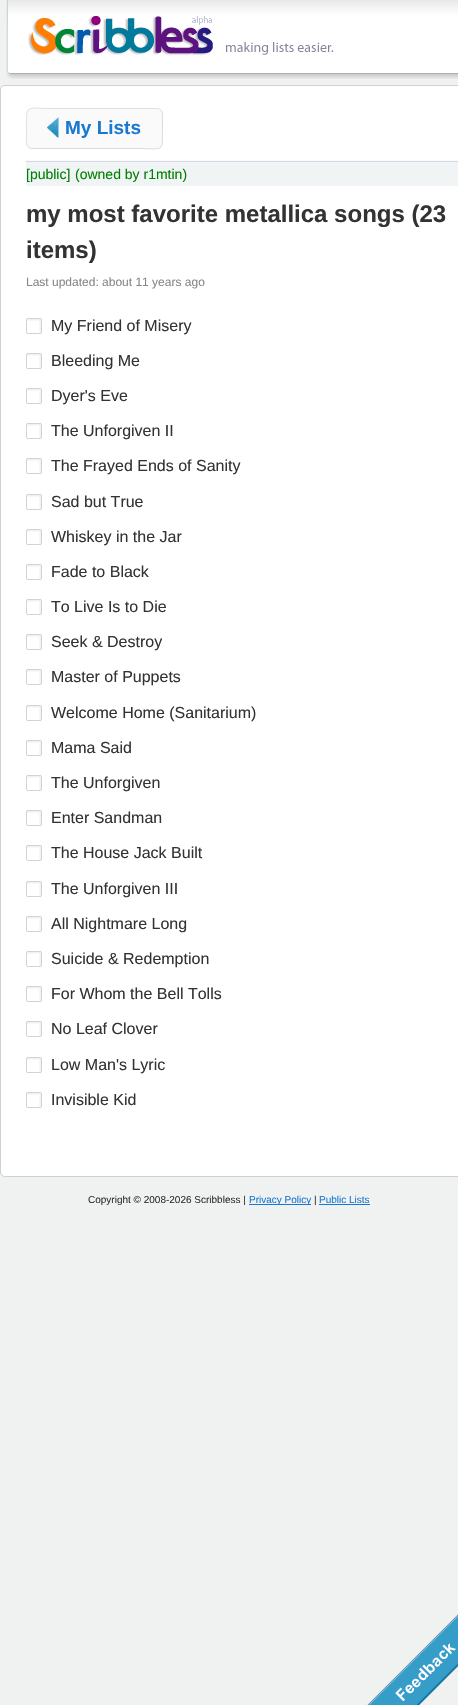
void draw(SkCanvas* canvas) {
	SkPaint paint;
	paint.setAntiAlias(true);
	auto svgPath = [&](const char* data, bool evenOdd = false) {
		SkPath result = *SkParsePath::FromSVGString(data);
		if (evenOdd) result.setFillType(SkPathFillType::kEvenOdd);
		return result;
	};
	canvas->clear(0xffeff2f1);
	canvas->drawImageRect(SkImages::DeferredFromEncodedData(SkData::MakeFromFileName("img1.png")), SkRect::MakeXYWH(6, 0, 452, 79), SkSamplingOptions());
	canvas->drawImageRect(SkImages::DeferredFromEncodedData(SkData::MakeFromFileName("img2.png")), SkRect::MakeXYWH(28, 16, 306, 40), SkSamplingOptions());
	paint.setColor(0xffffffff);
	canvas->drawRoundRect(SkRect::MakeXYWH(0.5, 85.5, 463, 1091), 4.5, 4.5, paint);
	paint.setStroke(true);
	paint.setStrokeWidth(1);
	paint.setColor(0xffcfd0d0);
	canvas->drawRoundRect(SkRect::MakeXYWH(0.5, 85.5, 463, 1091), 4.5, 4.5, paint);
	paint.setStroke(false);
	paint.setColor(0xfffafafa);
	canvas->drawRect(SkRect::MakeXYWH(26, 160, 432, 1), paint);
	paint.setColor(0xffd5d8e9);
	canvas->drawRect(SkRect::MakeXYWH(26, 161, 432, 1), paint);
	paint.setColor(0xfffafafa);
	canvas->drawRoundRect(SkRect::MakeXYWH(26, 108, 137, 41), 6, 6, paint);
	paint.setStroke(true);
	paint.setColor(0xffdbdbdb);
	canvas->drawPath(svgPath("M161 110C163 112.5 162.5 116 162.5 119V128.5C162.5 153.5 164 148.5 136 148.5H32C30.5 148.5 29 148 28 147"), paint);
	paint.setColor(0xffe2e1e1);
	canvas->drawPath(svgPath("M28 147C26 144.5 26.5 141 26.5 138V128.5C26.5 103.5 25 108.5 53 108.5H157C158.5 108.5 160 109 161 110"), paint);
	canvas->drawImageRect(SkImages::DeferredFromEncodedData(SkData::MakeFromFileName("img3.png")), SkRect::MakeXYWH(47, 117, 12, 21), SkSamplingOptions());
	SkFont f1(fontMgr->matchFamilyStyle("Liberation Sans", SkFontStyle::Bold()), 19);
	f1.setSubpixel(true);
	paint.setStroke(false);
	paint.setColor(0xff1978d1);
	canvas->drawString("My Lists", 65, 134, f1, paint);
	paint.setColor(0xfff1f4f5);
	canvas->drawRect(SkRect::MakeXYWH(26, 162, 432, 24), paint);
	SkFont f2(fontMgr->matchFamilyStyle("Liberation Sans", SkFontStyle::Normal()), 14);
	f2.setSubpixel(true);
	paint.setColor(0xff008000);
	canvas->drawString("[public]", 26, 179, f2, paint);
	canvas->drawString("(owned by r1mtin)", 75, 179, f2, paint);
	SkFont f3(fontMgr->matchFamilyStyle("Liberation Sans", SkFontStyle::Bold()), 24);
	f3.setSubpixel(true);
	paint.setColor(0xff333333);
	canvas->drawString("my most favorite metallica songs (23", 26, 222, f3, paint);
	canvas->drawString("items)", 26, 258, f3, paint);
	SkFont f4(fontMgr->matchFamilyStyle("Liberation Sans", SkFontStyle::Normal()), 12);
	f4.setSubpixel(true);
	paint.setColor(0xff888888);
	canvas->drawString("Last updated: about 11 years ago", 26, 286, f4, paint);
	canvas->drawImageRect(SkImages::DeferredFromEncodedData(SkData::MakeFromFileName("img4.png")), SkRect::MakeXYWH(26, 318, 16, 16), SkSamplingOptions());
	SkFont f5(fontMgr->matchFamilyStyle("Liberation Sans", SkFontStyle::Normal()), 16);
	f5.setSubpixel(true);
	paint.setColor(0xff333333);
	canvas->drawString("My Friend of Misery", 51, 331, f5, paint);
	canvas->drawImageRect(SkImages::DeferredFromEncodedData(SkData::MakeFromFileName("img4.png")), SkRect::MakeXYWH(26, 353, 16, 16), SkSamplingOptions());
	canvas->drawString("Bleeding Me", 51, 366, f5, paint);
	canvas->drawImageRect(SkImages::DeferredFromEncodedData(SkData::MakeFromFileName("img4.png")), SkRect::MakeXYWH(26, 388, 16, 16), SkSamplingOptions());
	canvas->drawString("Dyer's Eve", 51, 401, f5, paint);
	canvas->drawImageRect(SkImages::DeferredFromEncodedData(SkData::MakeFromFileName("img4.png")), SkRect::MakeXYWH(26, 423, 16, 16), SkSamplingOptions());
	canvas->drawString("The Unforgiven II", 51, 436, f5, paint);
	canvas->drawImageRect(SkImages::DeferredFromEncodedData(SkData::MakeFromFileName("img4.png")), SkRect::MakeXYWH(26, 458, 16, 16), SkSamplingOptions());
	canvas->drawString("The Frayed Ends of Sanity", 51, 471, f5, paint);
	canvas->drawImageRect(SkImages::DeferredFromEncodedData(SkData::MakeFromFileName("img4.png")), SkRect::MakeXYWH(26, 494, 16, 16), SkSamplingOptions());
	canvas->drawString("Sad but True", 51, 507, f5, paint);
	canvas->drawImageRect(SkImages::DeferredFromEncodedData(SkData::MakeFromFileName("img4.png")), SkRect::MakeXYWH(26, 529, 16, 16), SkSamplingOptions());
	canvas->drawString("Whiskey in the Jar", 51, 542, f5, paint);
	canvas->drawImageRect(SkImages::DeferredFromEncodedData(SkData::MakeFromFileName("img4.png")), SkRect::MakeXYWH(26, 564, 16, 16), SkSamplingOptions());
	canvas->drawString("Fade to Black", 51, 577, f5, paint);
	canvas->drawImageRect(SkImages::DeferredFromEncodedData(SkData::MakeFromFileName("img4.png")), SkRect::MakeXYWH(26, 599, 16, 16), SkSamplingOptions());
	canvas->drawString("To Live Is to Die", 51, 612, f5, paint);
	canvas->drawImageRect(SkImages::DeferredFromEncodedData(SkData::MakeFromFileName("img4.png")), SkRect::MakeXYWH(26, 634, 16, 16), SkSamplingOptions());
	canvas->drawString("Seek & Destroy", 51, 647, f5, paint);
	canvas->drawImageRect(SkImages::DeferredFromEncodedData(SkData::MakeFromFileName("img4.png")), SkRect::MakeXYWH(26, 669, 16, 16), SkSamplingOptions());
	canvas->drawString("Master of Puppets", 51, 682, f5, paint);
	canvas->drawImageRect(SkImages::DeferredFromEncodedData(SkData::MakeFromFileName("img4.png")), SkRect::MakeXYWH(26, 705, 16, 16), SkSamplingOptions());
	canvas->drawString("Welcome Home (Sanitarium)", 51, 718, f5, paint);
	canvas->drawImageRect(SkImages::DeferredFromEncodedData(SkData::MakeFromFileName("img4.png")), SkRect::MakeXYWH(26, 740, 16, 16), SkSamplingOptions());
	canvas->drawString("Mama Said", 51, 753, f5, paint);
	canvas->drawImageRect(SkImages::DeferredFromEncodedData(SkData::MakeFromFileName("img4.png")), SkRect::MakeXYWH(26, 775, 16, 16), SkSamplingOptions());
	canvas->drawString("The Unforgiven", 51, 788, f5, paint);
	canvas->drawImageRect(SkImages::DeferredFromEncodedData(SkData::MakeFromFileName("img4.png")), SkRect::MakeXYWH(26, 810, 16, 16), SkSamplingOptions());
	canvas->drawString("Enter Sandman", 51, 823, f5, paint);
	canvas->drawImageRect(SkImages::DeferredFromEncodedData(SkData::MakeFromFileName("img4.png")), SkRect::MakeXYWH(26, 845, 16, 16), SkSamplingOptions());
	canvas->drawString("The House Jack Built", 51, 858, f5, paint);
	canvas->drawImageRect(SkImages::DeferredFromEncodedData(SkData::MakeFromFileName("img4.png")), SkRect::MakeXYWH(26, 881, 16, 16), SkSamplingOptions());
	canvas->drawString("The Unforgiven III", 51, 894, f5, paint);
	canvas->drawImageRect(SkImages::DeferredFromEncodedData(SkData::MakeFromFileName("img4.png")), SkRect::MakeXYWH(26, 916, 16, 16), SkSamplingOptions());
	canvas->drawString("All Nightmare Long", 51, 929, f5, paint);
	canvas->drawImageRect(SkImages::DeferredFromEncodedData(SkData::MakeFromFileName("img4.png")), SkRect::MakeXYWH(26, 951, 16, 16), SkSamplingOptions());
	canvas->drawString("Suicide & Redemption", 51, 964, f5, paint);
	canvas->drawImageRect(SkImages::DeferredFromEncodedData(SkData::MakeFromFileName("img4.png")), SkRect::MakeXYWH(26, 986, 16, 16), SkSamplingOptions());
	canvas->drawString("For Whom the Bell Tolls", 51, 999, f5, paint);
	canvas->drawImageRect(SkImages::DeferredFromEncodedData(SkData::MakeFromFileName("img4.png")), SkRect::MakeXYWH(26, 1021, 16, 16), SkSamplingOptions());
	canvas->drawString("No Leaf Clover", 51, 1034, f5, paint);
	canvas->drawImageRect(SkImages::DeferredFromEncodedData(SkData::MakeFromFileName("img4.png")), SkRect::MakeXYWH(26, 1057, 16, 16), SkSamplingOptions());
	canvas->drawString("Low Man's Lyric", 51, 1070, f5, paint);
	canvas->drawImageRect(SkImages::DeferredFromEncodedData(SkData::MakeFromFileName("img4.png")), SkRect::MakeXYWH(26, 1092, 16, 16), SkSamplingOptions());
	canvas->drawString("Invisible Kid", 51, 1105, f5, paint);
	canvas->drawImageRect(SkImages::DeferredFromEncodedData(SkData::MakeFromFileName("img5.png")), SkRect::MakeXYWH(367, 1614, 91, 91), SkSamplingOptions());
	SkFont f6(fontMgr->matchFamilyStyle("Liberation Sans", SkFontStyle::Normal()), 10);
	f6.setSubpixel(true);
	canvas->drawString("Copyright © 2008-2026 Scribbless |", 88, 1203, f6, paint);
	paint.setColor(0xff1978d1);
	canvas->drawRect(SkRect::MakeXYWH(249, 1204, 62, 1), paint);
	canvas->drawString("Privacy Policy", 249, 1203, f6, paint);
	paint.setColor(0xff333333);
	canvas->drawString("|", 314, 1203, f6, paint);
	paint.setColor(0xff1978d1);
	canvas->drawString("Public Lists", 319, 1203, f6, paint);
	canvas->drawRect(SkRect::MakeXYWH(319, 1204, 51, 1), paint);
}
